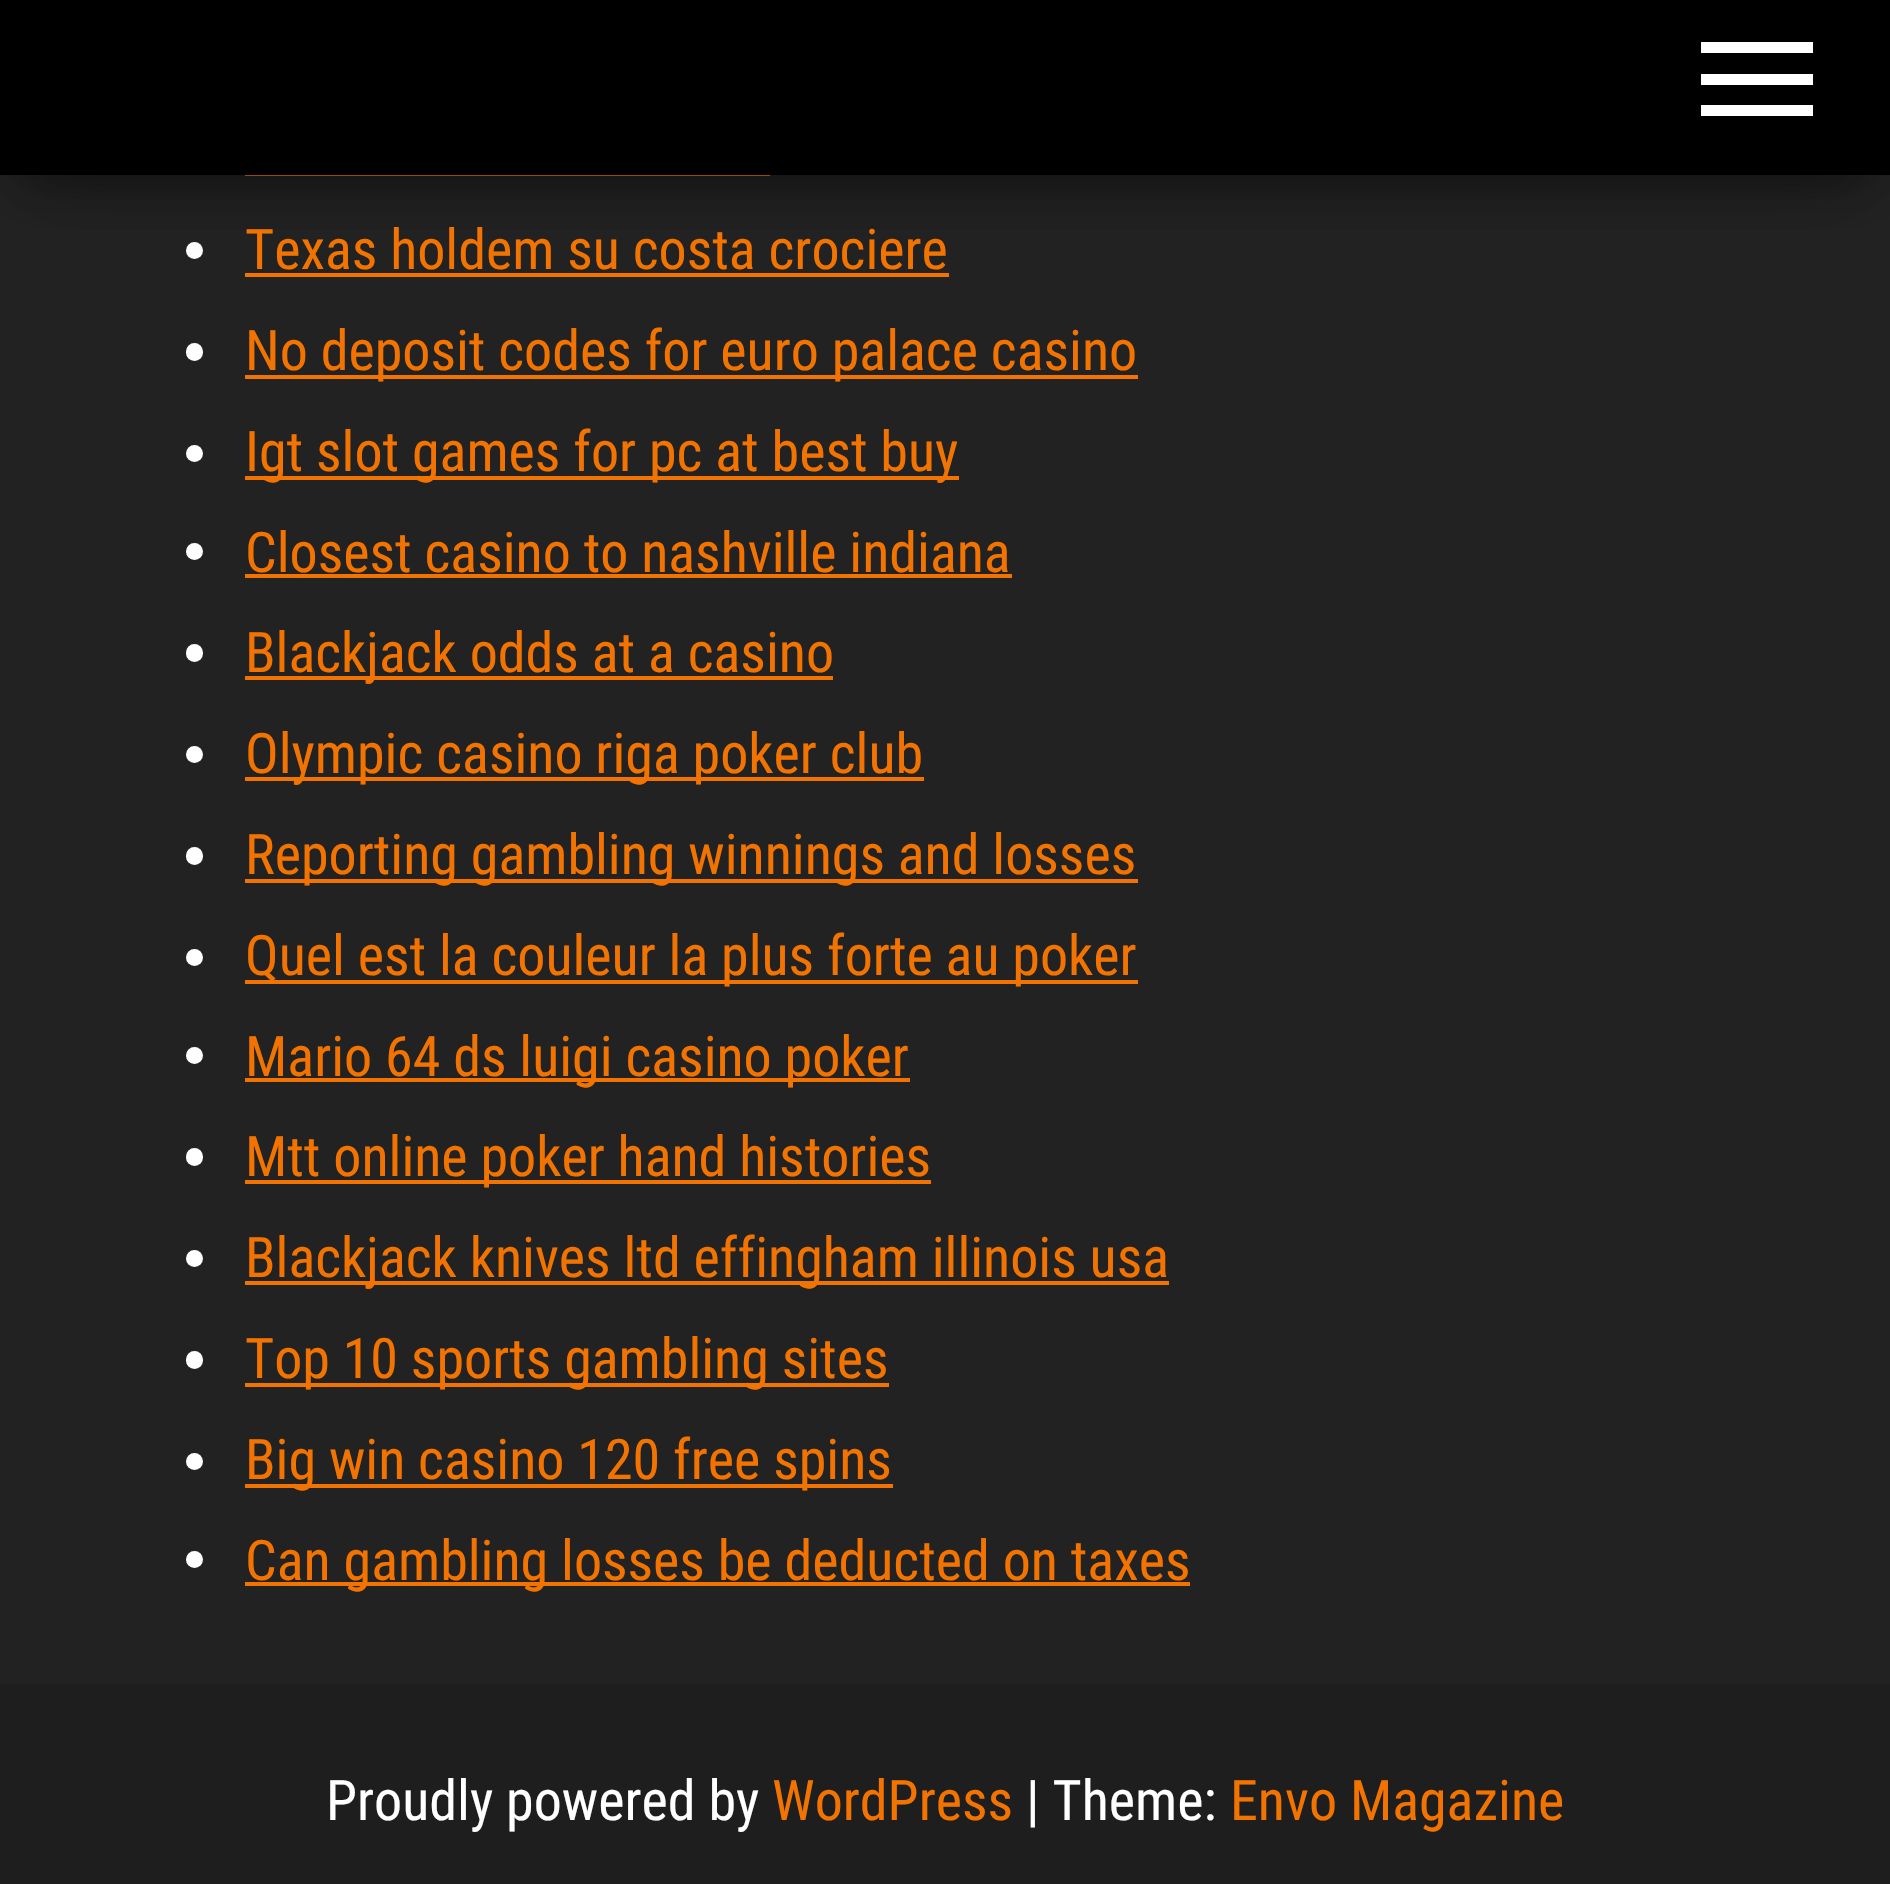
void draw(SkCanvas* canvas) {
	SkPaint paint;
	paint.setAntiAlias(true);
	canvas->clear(0xff222222);
	paint.setColor(0xfff27300);
	canvas->drawRect(SkRect::MakeXYWH(245, 175, 525, 1), paint);
	paint.setColor(0x33000000);
	paint.setMaskFilter(SkMaskFilter::MakeBlur(kNormal_SkBlurStyle, 17.5));
	canvas->drawRect(SkRect::MakeXYWH(18, 46, 1855, 140), paint);
	paint.setMaskFilter(nullptr);
	paint.setColor(0xffffffff);
	canvas->drawCircle(194.5, 250.5, 8.5, paint);
	paint.setColor(0xfff27300);
	canvas->drawRect(SkRect::MakeXYWH(245, 273, 704, 4), paint);
	paint.setColor(0x1f000000);
	paint.setMaskFilter(SkMaskFilter::MakeBlur(kNormal_SkBlurStyle, 35));
	canvas->drawRect(SkRect::MakeXYWH(0, 11, 1890, 175), paint);
	paint.setMaskFilter(nullptr);
	paint.setColor(0x6b000000);
	paint.setMaskFilter(SkMaskFilter::MakeBlur(kNormal_SkBlurStyle, 35));
	canvas->drawRect(SkRect::MakeXYWH(42, 77, 1806, 91), paint);
	paint.setMaskFilter(nullptr);
	paint.setColor(0xff000000);
	canvas->drawRect(SkRect::MakeXYWH(0, 0, 1890, 175), paint);
	paint.setColor(0xffffffff);
	canvas->drawRect(SkRect::MakeXYWH(1701, 42, 112, 11), paint);
	canvas->drawRect(SkRect::MakeXYWH(1701, 74, 112, 11), paint);
	canvas->drawRect(SkRect::MakeXYWH(1701, 105, 112, 11), paint);
	SkFont f1(fontMgr->matchFamilyStyle("Roboto Condensed", SkFontStyle::Normal()), 56);
	f1.setSubpixel(true);
	paint.setColor(0xfff27300);
	canvas->drawString("Texas holdem su costa crociere", 245, 269, f1, paint);
	paint.setColor(0xffffffff);
	canvas->drawRoundRect(SkRect::MakeXYWH(186, 343, 17, 18), 8.5, 8.5, paint);
	paint.setColor(0xfff27300);
	canvas->drawRect(SkRect::MakeXYWH(245, 375, 893, 4), paint);
	canvas->drawString("No deposit codes for euro palace casino", 245, 370, f1, paint);
	paint.setColor(0xffffffff);
	canvas->drawCircle(194.5, 453.5, 8.5, paint);
	paint.setColor(0xfff27300);
	canvas->drawRect(SkRect::MakeXYWH(245, 476, 714, 4), paint);
	canvas->drawString("Igt slot games for pc at best buy", 245, 471, f1, paint);
	paint.setColor(0xffffffff);
	canvas->drawCircle(194.5, 551.5, 8.5, paint);
	paint.setColor(0xfff27300);
	canvas->drawString("Closest casino to nashville indiana", 245, 572, f1, paint);
	canvas->drawRect(SkRect::MakeXYWH(245, 574, 767, 4), paint);
	paint.setColor(0xffffffff);
	canvas->drawRoundRect(SkRect::MakeXYWH(186, 644, 17, 18), 8.5, 8.5, paint);
	paint.setColor(0xfff27300);
	canvas->drawRect(SkRect::MakeXYWH(245, 676, 588, 4), paint);
	canvas->drawString("Blackjack odds at a casino", 245, 672, f1, paint);
	paint.setColor(0xffffffff);
	canvas->drawCircle(194.5, 754.5, 8.5, paint);
	paint.setColor(0xfff27300);
	canvas->drawRect(SkRect::MakeXYWH(245, 777, 679, 4), paint);
	canvas->drawString("Olympic casino riga poker club", 245, 773, f1, paint);
	paint.setColor(0xffffffff);
	canvas->drawRoundRect(SkRect::MakeXYWH(186, 847, 17, 18), 8.5, 8.5, paint);
	paint.setColor(0xfff27300);
	canvas->drawRect(SkRect::MakeXYWH(245, 879, 893, 4), paint);
	canvas->drawString("Reporting gambling winnings and losses", 245, 874, f1, paint);
	paint.setColor(0xffffffff);
	canvas->drawCircle(194.5, 957.5, 8.5, paint);
	paint.setColor(0xfff27300);
	canvas->drawRect(SkRect::MakeXYWH(245, 980, 893, 4), paint);
	canvas->drawString("Quel est la couleur la plus forte au poker", 245, 975, f1, paint);
	paint.setColor(0xffffffff);
	canvas->drawCircle(194.5, 1055.5, 8.5, paint);
	paint.setColor(0xfff27300);
	canvas->drawRect(SkRect::MakeXYWH(245, 1078, 665, 4), paint);
	canvas->drawString("Mario 64 ds luigi casino poker", 245, 1076, f1, paint);
	paint.setColor(0xffffffff);
	canvas->drawRoundRect(SkRect::MakeXYWH(186, 1148, 17, 18), 8.5, 8.5, paint);
	paint.setColor(0xfff27300);
	canvas->drawRect(SkRect::MakeXYWH(245, 1180, 686, 4), paint);
	canvas->drawString("Mtt online poker hand histories", 245, 1176, f1, paint);
	paint.setColor(0xffffffff);
	canvas->drawCircle(194.5, 1258.5, 8.5, paint);
	paint.setColor(0xfff27300);
	canvas->drawRect(SkRect::MakeXYWH(245, 1281, 924, 4), paint);
	canvas->drawString("Blackjack knives ltd effingham illinois usa", 245, 1277, f1, paint);
	paint.setColor(0xffffffff);
	canvas->drawRoundRect(SkRect::MakeXYWH(186, 1351, 17, 18), 8.5, 8.5, paint);
	paint.setColor(0xfff27300);
	canvas->drawRect(SkRect::MakeXYWH(245, 1383, 644, 4), paint);
	canvas->drawString("Top 10 sports gambling sites", 245, 1378, f1, paint);
	paint.setColor(0xffffffff);
	canvas->drawCircle(194.5, 1461.5, 8.5, paint);
	paint.setColor(0xfff27300);
	canvas->drawRect(SkRect::MakeXYWH(245, 1484, 648, 4), paint);
	canvas->drawString("Big win casino 120 free spins", 245, 1479, f1, paint);
	paint.setColor(0xffffffff);
	canvas->drawCircle(194.5, 1559.5, 8.5, paint);
	paint.setColor(0xfff27300);
	canvas->drawRect(SkRect::MakeXYWH(245, 1582, 945, 4), paint);
	canvas->drawString("Can gambling losses be deducted on taxes", 245, 1580, f1, paint);
	paint.setColor(0xff1e1e1e);
	canvas->drawRect(SkRect::MakeXYWH(0, 1684, 1890, 200), paint);
	paint.setColor(0xffffffff);
	canvas->drawString("Proudly powered by", 326, 1820, f1, paint);
	paint.setColor(0xfff27300);
	canvas->drawString("WordPress", 772, 1820, f1, paint);
	paint.setColor(0xffffffff);
	canvas->drawString("| Theme:", 1026, 1820, f1, paint);
	paint.setColor(0xfff27300);
	canvas->drawString("Envo Magazine", 1230, 1820, f1, paint);
}
